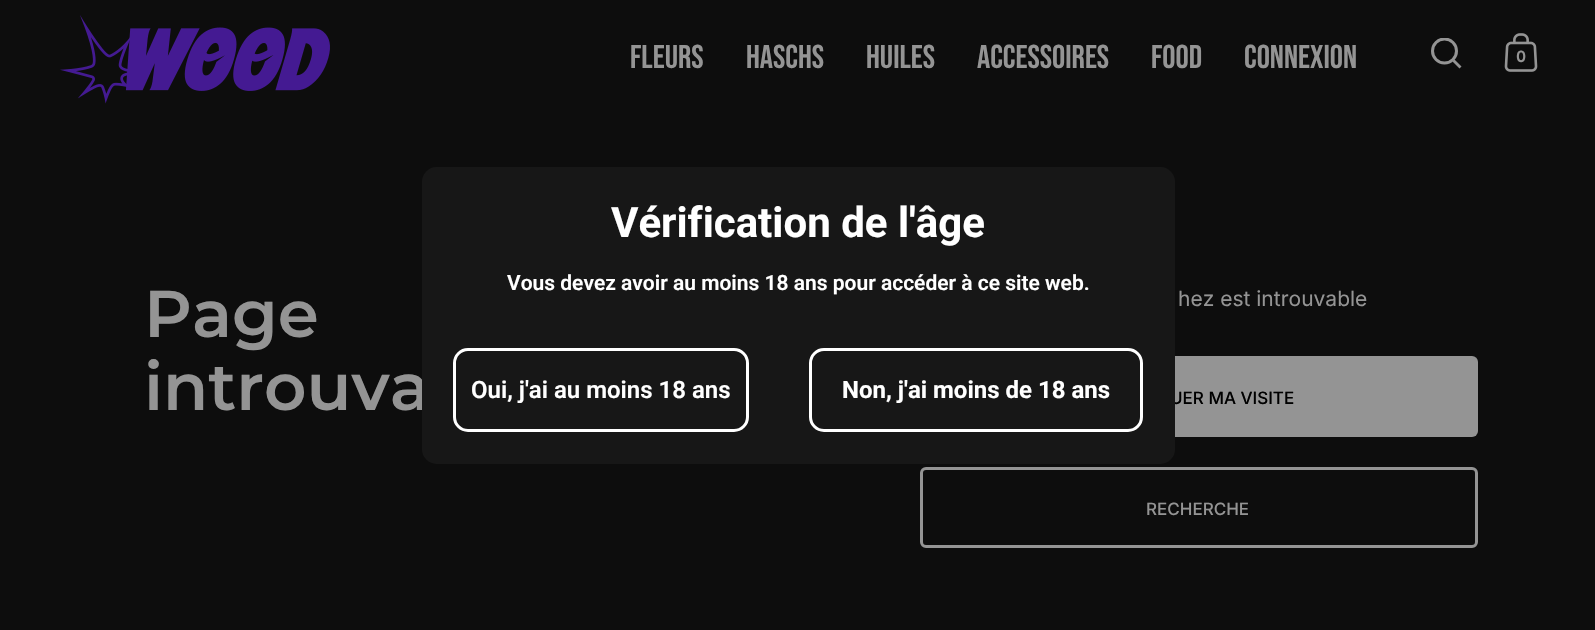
void draw(SkCanvas* canvas) {
	SkPaint paint;
	paint.setAntiAlias(true);
	auto svgPath = [&](const char* data, bool evenOdd = false) {
		SkPath result = *SkParsePath::FromSVGString(data);
		if (evenOdd) result.setFillType(SkPathFillType::kEvenOdd);
		return result;
	};
	canvas->clear(0xff0d0d0d);
	canvas->drawImageRect(SkImages::DeferredFromEncodedData(SkData::MakeFromFileName("img1.png")), SkRect::MakeXYWH(60, 15, 270, 89), SkSamplingOptions());
	SkFont f1(fontMgr->matchFamilyStyle("Bebas Neue", SkFontStyle::Normal()), 33);
	f1.setSubpixel(true);
	paint.setColor(0xff949494);
	canvas->drawString("FLEURS", 630, 68, f1, paint);
	canvas->drawString("HASCHS", 746, 68, f1, paint);
	canvas->drawString("HUILES", 866, 68, f1, paint);
	canvas->drawString("ACCESSOIRES", 977, 68, f1, paint);
	canvas->drawString("FOOD", 1151, 68, f1, paint);
	canvas->drawString("Connexion", 1244, 68, f1, paint);
	canvas->save();
	canvas->clipRect(SkRect::MakeXYWH(1431, 38, 32, 31));
	paint.setStroke(true);
	paint.setStrokeWidth(3);
	canvas->drawCircle(1444.5, 51, 12, paint);
	canvas->restore();
	paint.setStroke(false);
	canvas->drawPath(svgPath("M1452.5 61.5L1454.5 59.5L1461.5 66.5L1459.5 68.5Z"), paint);
	canvas->drawImageRect(SkImages::DeferredFromEncodedData(SkData::MakeFromFileName("img2.png")), SkRect::MakeXYWH(1504, 33, 34, 39), SkSamplingOptions());
	SkFont f2(fontMgr->matchFamilyStyle("Inter", SkFontStyle::Bold()), 15);
	f2.setSubpixel(true);
	canvas->drawString("0", 1516, 62, f2, paint);
	SkFont f3(fontMgr->matchFamilyStyle("Montserrat", SkFontStyle(600, SkFontStyle::kNormal_Width, SkFontStyle::kUpright_Slant)), 66);
	f3.setSubpixel(true);
	canvas->drawString("introuva", 144, 410, f3, paint);
	canvas->drawRoundRect(SkRect::MakeXYWH(920, 356, 558, 81), 6, 6, paint);
	SkFont f4(fontMgr->matchFamilyStyle("Inter", SkFontStyle(500, SkFontStyle::kNormal_Width, SkFontStyle::kUpright_Slant)), 17);
	f4.setSubpixel(true);
	paint.setColor(0xff000000);
	canvas->drawString("UER MA VISITE", 1170, 404, f4, paint);
	paint.setColor(0xff171717);
	canvas->drawRoundRect(SkRect::MakeXYWH(422, 167, 753, 297), 15, 15, paint);
	SkFont f5(fontMgr->matchFamilyStyle("Roboto", SkFontStyle::Bold()), 42);
	f5.setSubpixel(true);
	paint.setColor(0xffffffff);
	canvas->drawString("Vérification de l'âge", 611, 237, f5, paint);
	SkFont f6(fontMgr->matchFamilyStyle("Roboto", SkFontStyle(600, SkFontStyle::kNormal_Width, SkFontStyle::kUpright_Slant)), 21);
	f6.setSubpixel(true);
	canvas->drawString("Vous devez avoir au moins 18 ans pour accéder à ce site web.", 507, 290, f6, paint);
	paint.setStroke(true);
	canvas->drawRoundRect(SkRect::MakeXYWH(454.5, 349.5, 293, 81), 13.5, 13.5, paint);
	SkFont f7(fontMgr->matchFamilyStyle("Roboto", SkFontStyle(600, SkFontStyle::kNormal_Width, SkFontStyle::kUpright_Slant)), 24);
	f7.setSubpixel(true);
	paint.setStroke(false);
	canvas->drawString("Oui, j'ai au moins 18 ans", 471, 398, f7, paint);
	paint.setStroke(true);
	canvas->drawRoundRect(SkRect::MakeXYWH(810.5, 349.5, 331, 81), 13.5, 13.5, paint);
	SkFont f8(fontMgr->matchFamilyStyle("Roboto", SkFontStyle::Bold()), 24);
	f8.setSubpixel(true);
	paint.setStroke(false);
	canvas->drawString("Non, j'ai moins de 18 ans", 842, 398, f8, paint);
	paint.setColor(0xff949494);
	canvas->drawString("Page", 144, 337, f3, paint);
	SkFont f9(fontMgr->matchFamilyStyle("Inter", SkFontStyle::Normal()), 21);
	f9.setSubpixel(true);
	canvas->drawString("hez est introuvable", 1178, 306, f9, paint);
	paint.setStroke(true);
	canvas->drawRoundRect(SkRect::MakeXYWH(921.5, 468.5, 555, 78), 4.5, 4.5, paint);
	paint.setStroke(false);
	canvas->drawString("RECHERCHE", 1146, 515, f4, paint);
}
